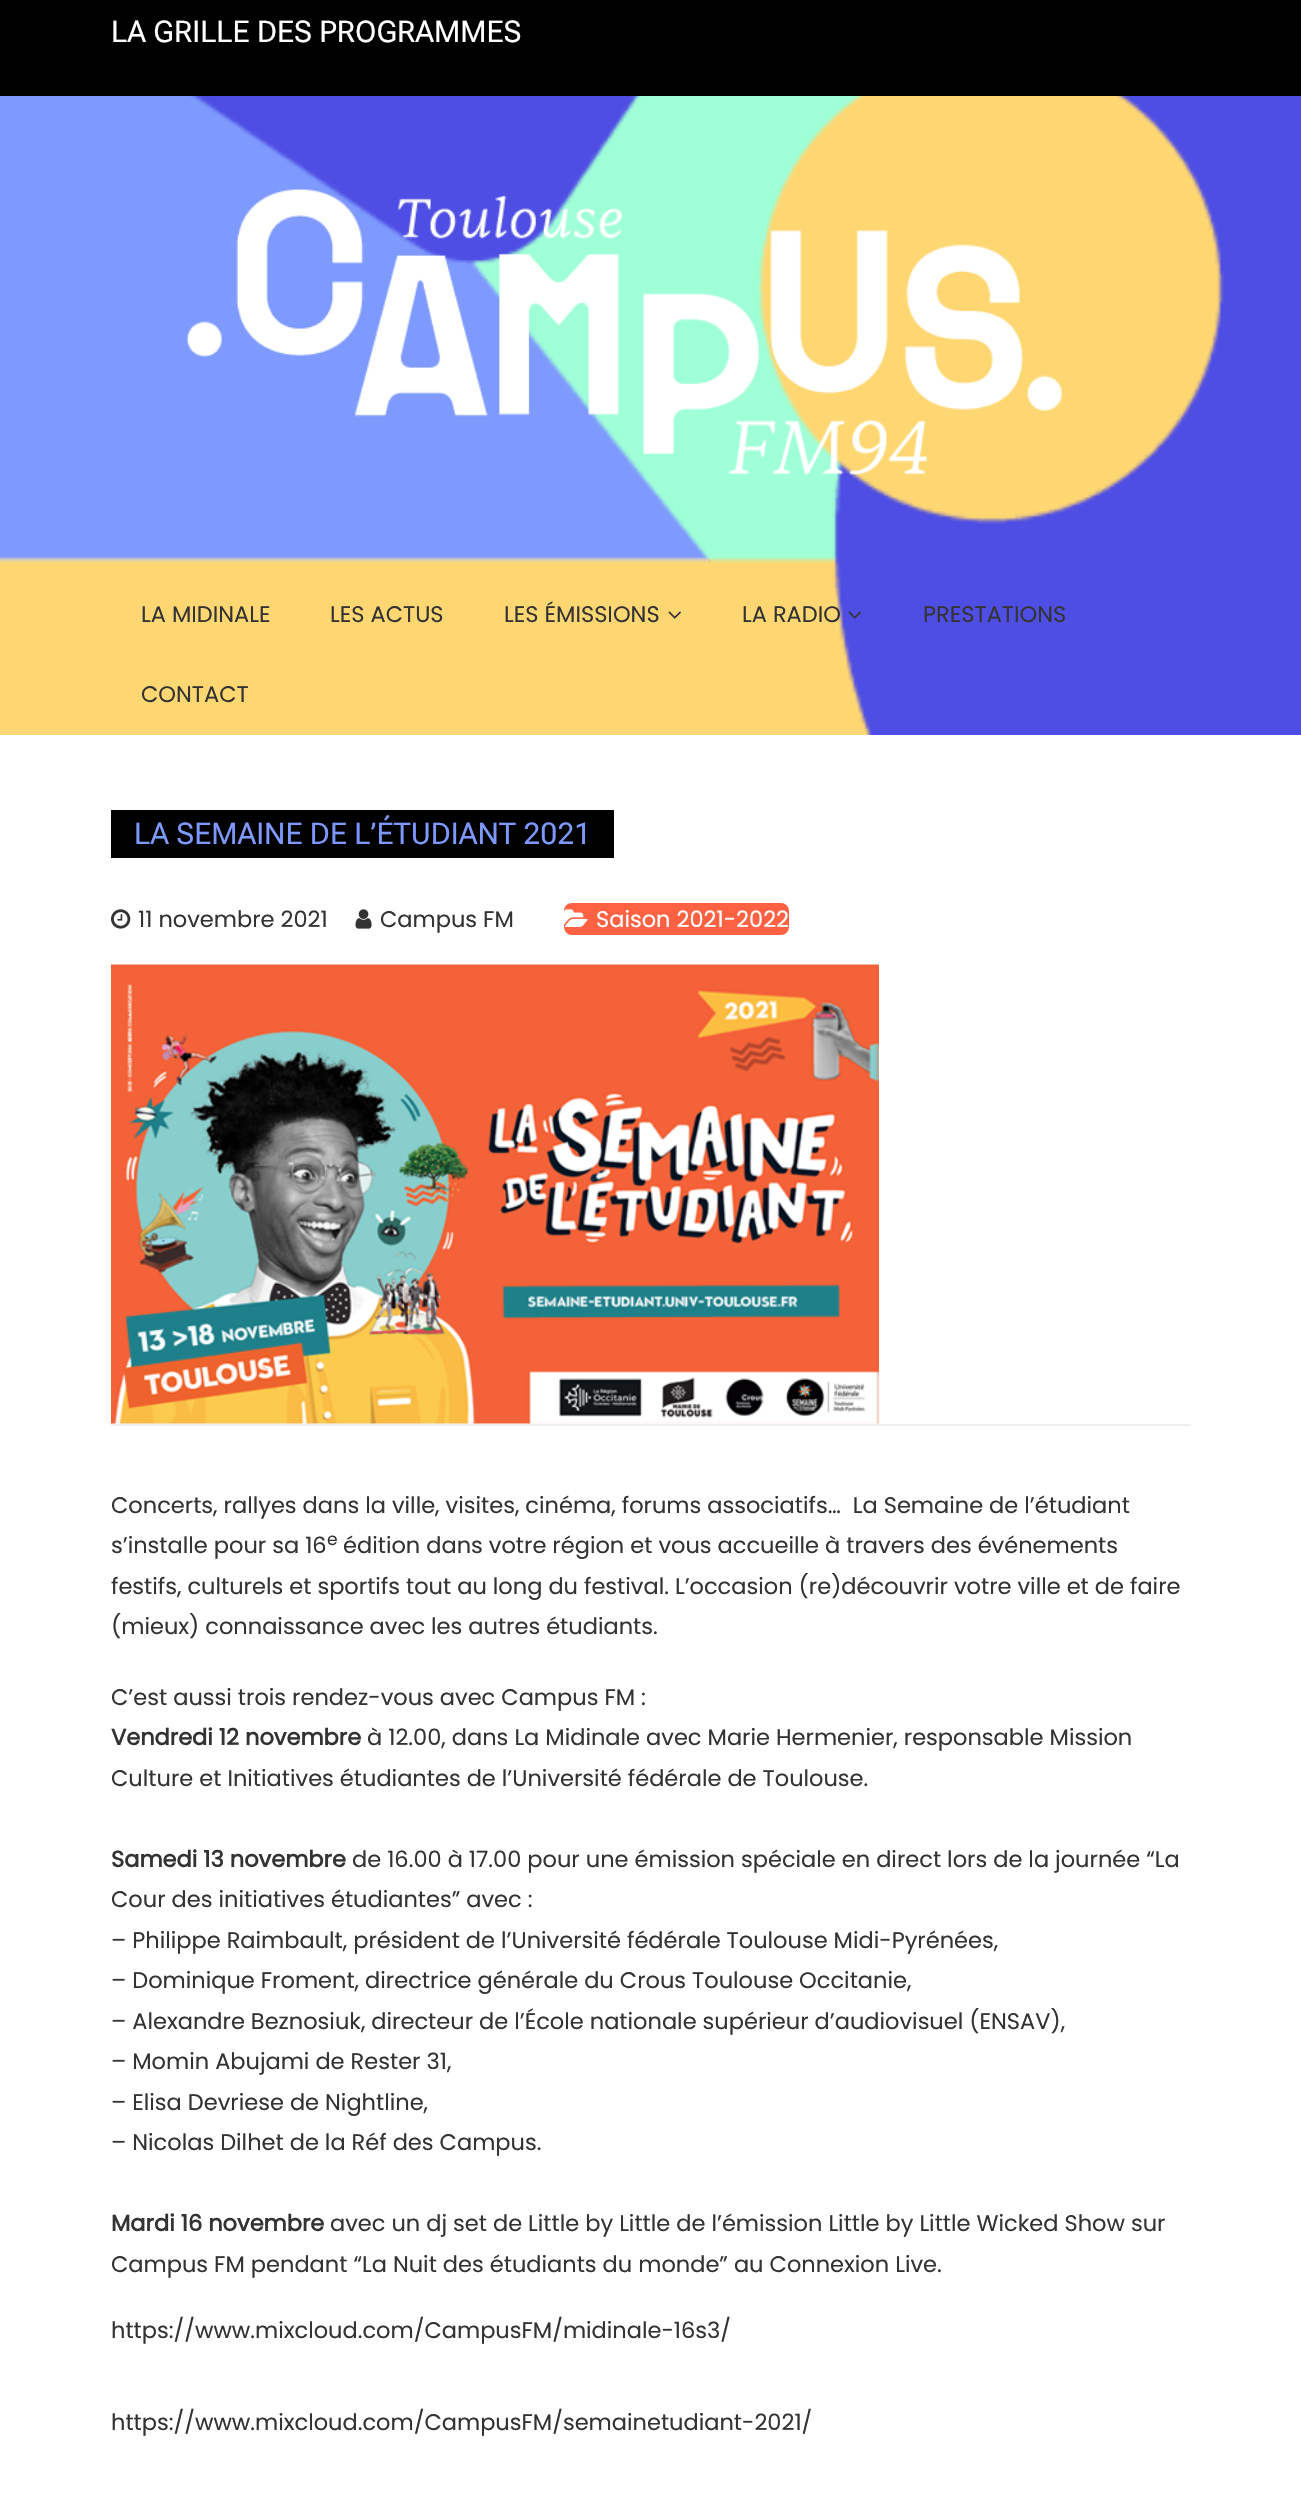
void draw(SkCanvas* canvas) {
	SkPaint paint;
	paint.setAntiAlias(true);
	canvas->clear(0xffffffff);
	canvas->drawImageRect(SkImages::DeferredFromEncodedData(SkData::MakeFromFileName("img1.png")), SkRect::MakeXYWH(0, 96, 1301, 639), SkSamplingOptions());
	paint.setColor(0xff000000);
	canvas->drawRect(SkRect::MakeXYWH(0, 0, 1301, 96), paint);
	SkFont f1(fontMgr->matchFamilyStyle("Roboto Flex", SkFontStyle::Normal()), 30);
	f1.setSubpixel(true);
	paint.setColor(0xffffffff);
	canvas->drawString("LA GRILLE DES PROGRAMMES", 111, 42, f1, paint);
	canvas->drawImageRect(SkImages::DeferredFromEncodedData(SkData::MakeFromFileName("img2.png")), SkRect::MakeXYWH(186, 189, 876, 286), SkSamplingOptions());
	SkFont f2(fontMgr->matchFamilyStyle("Poppins", SkFontStyle::Normal()), 22.5);
	f2.setSubpixel(true);
	paint.setColor(0xff333333);
	canvas->drawString("LA MIDINALE", 141, 622, f2, paint);
	canvas->drawString("LES ACTUS", 330, 622, f2, paint);
	canvas->drawString("LES ÉMISSIONS", 504, 622, f2, paint);
	canvas->drawImageRect(SkImages::DeferredFromEncodedData(SkData::MakeFromFileName("img3.png")), SkRect::MakeXYWH(668, 611, 13, 8), SkSamplingOptions());
	canvas->drawString("LA RADIO", 742, 622, f2, paint);
	canvas->drawImageRect(SkImages::DeferredFromEncodedData(SkData::MakeFromFileName("img4.png")), SkRect::MakeXYWH(848, 611, 13, 8), SkSamplingOptions());
	canvas->drawString("PRESTATIONS", 923, 622, f2, paint);
	canvas->drawString("CONTACT", 141, 702, f2, paint);
	paint.setColor(0xff000000);
	canvas->drawRect(SkRect::MakeXYWH(111, 810, 503, 48), paint);
	paint.setColor(0xff7d99ff);
	canvas->drawString("LA SEMAINE DE L’ÉTUDIANT 2021", 134, 844, f1, paint);
	canvas->drawImageRect(SkImages::DeferredFromEncodedData(SkData::MakeFromFileName("img5.png")), SkRect::MakeXYWH(111, 909, 20, 20), SkSamplingOptions());
	paint.setColor(0xff333333);
	canvas->drawString("11 novembre 2021", 138, 927, f2, paint);
	canvas->drawImageRect(SkImages::DeferredFromEncodedData(SkData::MakeFromFileName("img6.png")), SkRect::MakeXYWH(355, 909, 17, 20), SkSamplingOptions());
	canvas->drawString("Campus FM", 380, 927, f2, paint);
	paint.setColor(0xffff6243);
	canvas->drawRoundRect(SkRect::MakeXYWH(564, 903, 225, 32), 8, 8, paint);
	canvas->drawImageRect(SkImages::DeferredFromEncodedData(SkData::MakeFromFileName("img7.png")), SkRect::MakeXYWH(564, 909, 24, 18), SkSamplingOptions());
	paint.setColor(0xffffffff);
	canvas->drawString("Saison 2021-2022", 596, 927, f2, paint);
	canvas->drawImageRect(SkImages::DeferredFromEncodedData(SkData::MakeFromFileName("img8.png")), SkRect::MakeXYWH(111, 964, 768, 460), SkSamplingOptions());
	paint.setColor(0xffeeeeee);
	canvas->drawRect(SkRect::MakeXYWH(111, 1424, 1080, 2), paint);
	paint.setColor(0xff333333);
	canvas->drawString("Concerts, rallyes dans la ville, visites, cinéma, forums associatifs…  La Semaine de l’étudiant", 111, 1513, f2, paint);
	canvas->drawString("s’installe pour sa 16", 111, 1553, f2, paint);
	SkFont f3(fontMgr->matchFamilyStyle("Poppins", SkFontStyle::Normal()), 17);
	f3.setSubpixel(true);
	canvas->drawString("e", 327, 1545, f3, paint);
	canvas->drawString("édition dans votre région et vous accueille à travers des événements", 343, 1553, f2, paint);
	canvas->drawString("festifs, culturels et sportifs tout au long du festival. L’occasion (re)découvrir votre ville et de faire", 111, 1594, f2, paint);
	canvas->drawString("(mieux) connaissance avec les autres étudiants.", 111, 1634, f2, paint);
	canvas->drawString("C’est aussi trois rendez-vous avec Campus FM :", 111, 1705, f2, paint);
	SkFont f4(fontMgr->matchFamilyStyle("Poppins", SkFontStyle::Bold()), 22.5);
	f4.setSubpixel(true);
	canvas->drawString("Vendredi 12 novembre", 111, 1745, f4, paint);
	canvas->drawString("à 12.00, dans La Midinale avec Marie Hermenier, responsable Mission", 367, 1745, f2, paint);
	canvas->drawString("Culture et Initiatives étudiantes de l’Université fédérale de Toulouse.", 111, 1786, f2, paint);
	canvas->drawString("Samedi 13 novembre", 111, 1867, f4, paint);
	canvas->drawString("de 16.00 à 17.00 pour une émission spéciale en direct lors de la journée “La", 352, 1867, f2, paint);
	canvas->drawString("Cour des initiatives étudiantes” avec :", 111, 1907, f2, paint);
	canvas->drawString("– Philippe Raimbault, président de l’Université fédérale Toulouse Midi-Pyrénées,", 111, 1948, f2, paint);
	canvas->drawString("– Dominique Froment, directrice générale du Crous Toulouse Occitanie,", 111, 1988, f2, paint);
	canvas->drawString("– Alexandre Beznosiuk, directeur de l’École nationale supérieur d’audiovisuel (ENSAV),", 111, 2029, f2, paint);
	canvas->drawString("– Momin Abujami de Rester 31,", 111, 2069, f2, paint);
	canvas->drawString("– Elisa Devriese de Nightline,", 111, 2110, f2, paint);
	canvas->drawString("– Nicolas Dilhet de la Réf des Campus.", 111, 2150, f2, paint);
	canvas->drawString("Mardi 16 novembre", 111, 2231, f4, paint);
	canvas->drawString("avec un dj set de Little by Little de l’émission Little by Little Wicked Show sur", 330, 2231, f2, paint);
	canvas->drawString("Campus FM pendant “La Nuit des étudiants du monde” au Connexion Live.", 111, 2272, f2, paint);
	canvas->drawString("https://www.mixcloud.com/CampusFM/midinale-16s3/", 111, 2338, f2, paint);
	canvas->drawString("https://www.mixcloud.com/CampusFM/semainetudiant-2021/", 111, 2430, f2, paint);
}
